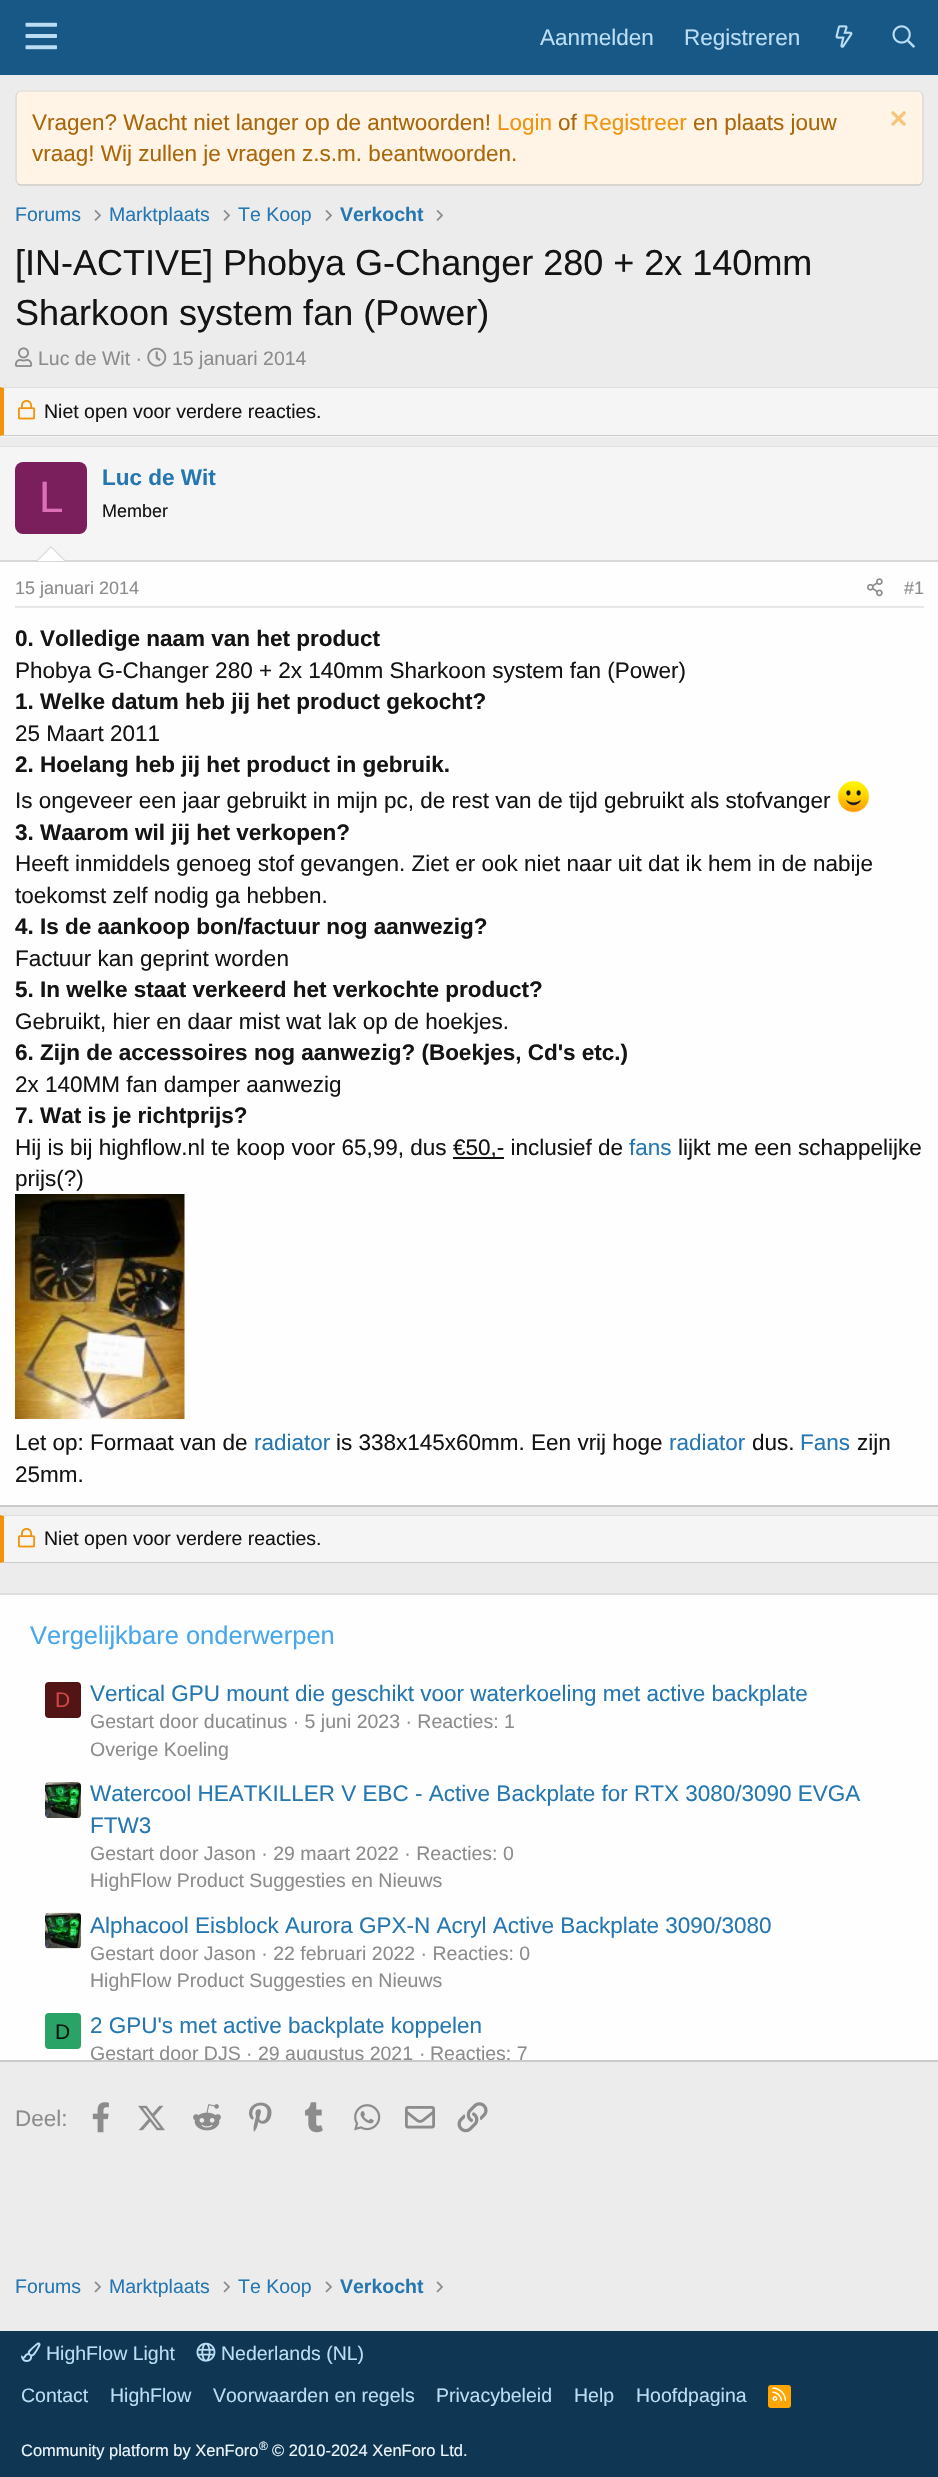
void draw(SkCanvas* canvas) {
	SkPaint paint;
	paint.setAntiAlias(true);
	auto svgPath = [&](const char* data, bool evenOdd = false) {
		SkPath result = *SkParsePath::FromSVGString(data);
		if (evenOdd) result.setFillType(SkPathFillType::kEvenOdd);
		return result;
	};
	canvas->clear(0xffececec);
	paint.setColor(0xff185886);
	canvas->drawRect(SkRect::MakeXYWH(0, 0, 938, 75), paint);
	canvas->drawImageRect(SkImages::DeferredFromEncodedData(SkData::MakeFromFileName("img1.png")), SkRect::MakeXYWH(25, 22, 32, 28), SkSamplingOptions());
	SkFont f1(fontMgr->matchFamilyStyle("Liberation Sans", SkFontStyle::Normal()), 22.5);
	f1.setSubpixel(true);
	paint.setColor(0xffbcdef5);
	canvas->drawString("Aanmelden", 540, 45, f1, paint);
	canvas->drawString("Registreren", 684, 45, f1, paint);
	canvas->drawImageRect(SkImages::DeferredFromEncodedData(SkData::MakeFromFileName("img2.png")), SkRect::MakeXYWH(835, 25, 18, 23), SkSamplingOptions());
	canvas->drawImageRect(SkImages::DeferredFromEncodedData(SkData::MakeFromFileName("img3.png")), SkRect::MakeXYWH(892, 25, 23, 23), SkSamplingOptions());
	paint.setColor(0xfffff4e5);
	canvas->drawRoundRect(SkRect::MakeXYWH(15, 90, 909, 96), 6, 6, paint);
	paint.setStroke(true);
	paint.setStrokeWidth(1.5);
	paint.setColor(0xffdfdfdf);
	canvas->drawPath(svgPath("M17.5 92.5C18.5 91.5 19.5 91 21 91H918C919.5 91 920.5 91.5 921.5 92.5"), paint);
	paint.setColor(0xffd8d8d8);
	canvas->drawPath(svgPath("M921.5 92.5L923 95.5V180.5L921.5 183.5"), paint);
	paint.setColor(0xffcbcbcb);
	canvas->drawPath(svgPath("M921.5 183.5C920.5 184.5 919.5 185 918 185H21C19.5 185 18.5 184.5 17.5 183.5"), paint);
	paint.setColor(0xffd8d8d8);
	canvas->drawPath(svgPath("M17.5 183.5L16 180.5V95.5L17.5 92.5"), paint);
	paint.setStroke(false);
	paint.setColor(0xffaa6709);
	canvas->drawString("Vragen? Wacht niet langer op de antwoorden!", 32, 130, f1, paint);
	paint.setColor(0xfff2930d);
	canvas->drawString("Login", 497, 130, f1, paint);
	paint.setColor(0xffaa6709);
	canvas->drawString("of", 558, 130, f1, paint);
	paint.setColor(0xfff2930d);
	canvas->drawString("Registreer", 583, 130, f1, paint);
	paint.setColor(0xffaa6709);
	canvas->drawString("en plaats jouw", 693, 130, f1, paint);
	canvas->drawImageRect(SkImages::DeferredFromEncodedData(SkData::MakeFromFileName("img4.png")), SkRect::MakeXYWH(891, 111, 15, 15), SkSamplingOptions());
	canvas->drawString("vraag! Wij zullen je vragen z.s.m. beantwoorden.", 32, 161, f1, paint);
	SkFont f2(fontMgr->matchFamilyStyle("Liberation Sans", SkFontStyle::Normal()), 19.5);
	f2.setSubpixel(true);
	paint.setColor(0xff2577b1);
	canvas->drawString("Forums", 15, 221, f2, paint);
	canvas->drawImageRect(SkImages::DeferredFromEncodedData(SkData::MakeFromFileName("img5.png")), SkRect::MakeXYWH(94, 210, 7, 11), SkSamplingOptions());
	canvas->drawString("Marktplaats", 109, 221, f2, paint);
	canvas->drawImageRect(SkImages::DeferredFromEncodedData(SkData::MakeFromFileName("img5.png")), SkRect::MakeXYWH(223, 210, 7, 11), SkSamplingOptions());
	canvas->drawString("Te Koop", 238, 221, f2, paint);
	canvas->drawImageRect(SkImages::DeferredFromEncodedData(SkData::MakeFromFileName("img5.png")), SkRect::MakeXYWH(325, 210, 7, 11), SkSamplingOptions());
	SkFont f3(fontMgr->matchFamilyStyle("Liberation Sans", SkFontStyle::Bold()), 19.5);
	f3.setSubpixel(true);
	canvas->drawString("Verkocht", 340, 221, f3, paint);
	canvas->drawImageRect(SkImages::DeferredFromEncodedData(SkData::MakeFromFileName("img5.png")), SkRect::MakeXYWH(436, 210, 7, 11), SkSamplingOptions());
	SkFont f4(fontMgr->matchFamilyStyle("Liberation Sans", SkFontStyle::Normal()), 36);
	f4.setSubpixel(true);
	paint.setColor(0xff141414);
	canvas->drawString("[IN-ACTIVE] Phobya G-Changer 280 + 2x 140mm", 15, 275, f4, paint);
	canvas->drawString("Sharkoon system fan (Power)", 15, 325, f4, paint);
	canvas->drawImageRect(SkImages::DeferredFromEncodedData(SkData::MakeFromFileName("img6.png")), SkRect::MakeXYWH(15, 347, 18, 20), SkSamplingOptions());
	paint.setColor(0xff8c8c8c);
	canvas->drawString("Luc de Wit ·", 38, 365, f2, paint);
	canvas->drawImageRect(SkImages::DeferredFromEncodedData(SkData::MakeFromFileName("img7.png")), SkRect::MakeXYWH(147, 347, 20, 20), SkSamplingOptions());
	canvas->drawString("15 januari 2014", 172, 365, f2, paint);
	paint.setColor(0xfff5f5f5);
	canvas->drawRect(SkRect::MakeXYWH(0, 387, 938, 50), paint);
	paint.setColor(0xffdfdfdf);
	canvas->drawPath(svgPath("M0 387H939V388H4Z"), paint);
	paint.setColor(0xffcbcbcb);
	canvas->drawPath(svgPath("M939 436H0L4 435H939Z"), paint);
	paint.setColor(0xfff2930d);
	canvas->drawPath(svgPath("M0 436V387L4 388V435Z"), paint);
	canvas->drawImageRect(SkImages::DeferredFromEncodedData(SkData::MakeFromFileName("img8.png")), SkRect::MakeXYWH(18, 399, 18, 21), SkSamplingOptions());
	paint.setColor(0xff141414);
	canvas->drawString("Niet open voor verdere reacties.", 44, 418, f2, paint);
	paint.setColor(0xfffefefe);
	canvas->drawRect(SkRect::MakeXYWH(0, 562, 938, 943), paint);
	paint.setColor(0xffdfdfdf);
	canvas->drawRect(SkRect::MakeXYWH(0, 446, 938, 1), paint);
	paint.setColor(0xffcbcbcb);
	canvas->drawRect(SkRect::MakeXYWH(0, 1505, 938, 2), paint);
	paint.setColor(0xfff5f5f5);
	canvas->drawRect(SkRect::MakeXYWH(0, 447, 938, 113), paint);
	paint.setColor(0xffd8d8d8);
	canvas->drawRect(SkRect::MakeXYWH(0, 560, 938, 2), paint);
	paint.setColor(0xff7a1f5c);
	canvas->drawRoundRect(SkRect::MakeXYWH(15, 462, 72, 72), 8, 8, paint);
	SkFont f5(fontMgr->matchFamilyStyle("Liberation Sans", SkFontStyle::Normal()), 44);
	f5.setSubpixel(true);
	paint.setColor(0xffdb70b8);
	canvas->drawString("L", 39, 512, f5, paint);
	SkFont f6(fontMgr->matchFamilyStyle("Liberation Sans", SkFontStyle::Bold()), 22.5);
	f6.setSubpixel(true);
	paint.setColor(0xff2577b1);
	canvas->drawString("Luc de Wit", 102, 485, f6, paint);
	SkFont f7(fontMgr->matchFamilyStyle("Liberation Sans", SkFontStyle::Normal()), 18);
	f7.setSubpixel(true);
	paint.setColor(0xff141414);
	canvas->drawString("Member", 102, 517, f7, paint);
	paint.setColor(0xffd8d8d8);
	canvas->drawPath(svgPath("M66 561H36L51 546Z"), paint);
	paint.setColor(0xfffefefe);
	canvas->drawPath(svgPath("M64.5 561H37.5L51 547.5Z"), paint);
	paint.setColor(0xffe7e7e7);
	canvas->drawRect(SkRect::MakeXYWH(15, 606, 909, 2), paint);
	paint.setColor(0xff8c8c8c);
	canvas->drawString("15 januari 2014", 15, 594, f7, paint);
	canvas->drawImageRect(SkImages::DeferredFromEncodedData(SkData::MakeFromFileName("img9.png")), SkRect::MakeXYWH(867, 578, 16, 19), SkSamplingOptions());
	canvas->drawString("#1", 904, 594, f7, paint);
	paint.setColor(0xff141414);
	canvas->drawString("0. Volledige naam van het product", 15, 646, f6, paint);
	canvas->drawString("Phobya G-Changer 280 + 2x 140mm Sharkoon system fan (Power)", 15, 678, f1, paint);
	canvas->drawString("1. Welke datum heb jij het product gekocht?", 15, 709, f6, paint);
	canvas->drawString("25 Maart 2011", 15, 741, f1, paint);
	canvas->drawString("2. Hoelang heb jij het product in gebruik.", 15, 772, f6, paint);
	canvas->drawString("Is ongeveer een jaar gebruikt in mijn pc, de rest van de tijd gebruikt als stofvanger", 15, 808, f1, paint);
	canvas->drawImageRect(SkImages::DeferredFromEncodedData(SkData::MakeFromFileName("img10.png")), SkRect::MakeXYWH(837, 780, 33, 33), SkSamplingOptions());
	canvas->drawString("3. Waarom wil jij het verkopen?", 15, 840, f6, paint);
	canvas->drawString("Heeft inmiddels genoeg stof gevangen. Ziet er ook niet naar uit dat ik hem in de nabije", 15, 871, f1, paint);
	canvas->drawString("toekomst zelf nodig ga hebben.", 15, 903, f1, paint);
	canvas->drawString("4. Is de aankoop bon/factuur nog aanwezig?", 15, 934, f6, paint);
	canvas->drawString("Factuur kan geprint worden", 15, 966, f1, paint);
	canvas->drawString("5. In welke staat verkeerd het verkochte product?", 15, 997, f6, paint);
	canvas->drawString("Gebruikt, hier en daar mist wat lak op de hoekjes.", 15, 1029, f1, paint);
	canvas->drawString("6. Zijn de accessoires nog aanwezig? (Boekjes, Cd's etc.)", 15, 1060, f6, paint);
	canvas->drawString("2x 140MM fan damper aanwezig", 15, 1092, f1, paint);
	canvas->drawString("7. Wat is je richtprijs?", 15, 1123, f6, paint);
	canvas->drawString("Hij is bij highflow.nl te koop voor 65,99, dus", 15, 1155, f1, paint);
	canvas->drawRect(SkRect::MakeXYWH(453, 1157, 51, 2), paint);
	canvas->drawString("€50,- inclusief de", 453, 1155, f1, paint);
	paint.setColor(0xff2577b1);
	canvas->drawString("fans", 629, 1155, f1, paint);
	paint.setColor(0xff141414);
	canvas->drawString("lijkt me een schappelijke", 678, 1155, f1, paint);
	canvas->drawString("prijs(?)", 15, 1186, f1, paint);
	canvas->drawImageRect(SkImages::DeferredFromEncodedData(SkData::MakeFromFileName("img11.png")), SkRect::MakeXYWH(15, 1194, 170, 225), SkSamplingOptions());
	canvas->drawString("Let op: Formaat van de", 15, 1450, f1, paint);
	paint.setColor(0xff2577b1);
	canvas->drawString("radiator", 254, 1450, f1, paint);
	paint.setColor(0xff141414);
	canvas->drawString("is 338x145x60mm. Een vrij hoge", 336, 1450, f1, paint);
	paint.setColor(0xff2577b1);
	canvas->drawString("radiator", 669, 1450, f1, paint);
	paint.setColor(0xff141414);
	canvas->drawString("dus.", 752, 1450, f1, paint);
	paint.setColor(0xff2577b1);
	canvas->drawString("Fans", 800, 1450, f1, paint);
	paint.setColor(0xff141414);
	canvas->drawString("zijn", 857, 1450, f1, paint);
	canvas->drawString("25mm.", 15, 1482, f1, paint);
	paint.setColor(0xfff5f5f5);
	canvas->drawRect(SkRect::MakeXYWH(0, 1515, 938, 48), paint);
	paint.setColor(0xffdfdfdf);
	canvas->drawPath(svgPath("M0 1515H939V1516H4Z"), paint);
	paint.setColor(0xffcbcbcb);
	canvas->drawPath(svgPath("M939 1563H0L4 1562H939Z"), paint);
	paint.setColor(0xfff2930d);
	canvas->drawPath(svgPath("M0 1563V1515L4 1516V1562Z"), paint);
	canvas->drawImageRect(SkImages::DeferredFromEncodedData(SkData::MakeFromFileName("img8.png")), SkRect::MakeXYWH(18, 1527, 18, 21), SkSamplingOptions());
	paint.setColor(0xff141414);
	canvas->drawString("Niet open voor verdere reacties.", 44, 1545, f2, paint);
	paint.setColor(0xfffefefe);
	canvas->drawRect(SkRect::MakeXYWH(0, 1595, 938, 465), paint);
	paint.setColor(0xffdfdfdf);
	canvas->drawRect(SkRect::MakeXYWH(0, 1593, 938, 2), paint);
	paint.setColor(0xffcbcbcb);
	canvas->drawRect(SkRect::MakeXYWH(0, 2060, 938, 2), paint);
	SkFont f8(fontMgr->matchFamilyStyle("Liberation Sans", SkFontStyle::Normal()), 25.5);
	f8.setSubpixel(true);
	paint.setColor(0xff47a7eb);
	canvas->drawString("Vergelijkbare onderwerpen", 30, 1644, f8, paint);
	paint.setColor(0xff521414);
	canvas->drawRoundRect(SkRect::MakeXYWH(45, 1682, 36, 36), 4, 4, paint);
	SkFont f9(fontMgr->matchFamilyStyle("Liberation Sans", SkFontStyle::Normal()), 21);
	f9.setSubpixel(true);
	paint.setColor(0xffd14747);
	canvas->drawString("D", 55, 1707, f9, paint);
	paint.setColor(0xff2577b1);
	canvas->drawString("Vertical GPU mount die geschikt voor waterkoeling met active backplate", 90, 1701, f1, paint);
	paint.setColor(0xff8c8c8c);
	canvas->drawString("Gestart door ducatinus · 5 juni 2023 · Reacties: 1", 90, 1728, f2, paint);
	canvas->drawString("Overige Koeling", 90, 1756, f2, paint);
	canvas->drawImageRect(SkImages::DeferredFromEncodedData(SkData::MakeFromFileName("img12.png")), SkRect::MakeXYWH(45, 1782, 36, 36), SkSamplingOptions());
	paint.setColor(0xff2577b1);
	canvas->drawString("Watercool HEATKILLER V EBC - Active Backplate for RTX 3080/3090 EVGA", 90, 1801, f1, paint);
	canvas->drawString("FTW3", 90, 1833, f1, paint);
	paint.setColor(0xff8c8c8c);
	canvas->drawString("Gestart door Jason · 29 maart 2022 · Reacties: 0", 90, 1860, f2, paint);
	canvas->drawString("HighFlow Product Suggesties en Nieuws", 90, 1887, f2, paint);
	canvas->drawImageRect(SkImages::DeferredFromEncodedData(SkData::MakeFromFileName("img13.png")), SkRect::MakeXYWH(45, 1912, 36, 37), SkSamplingOptions());
	paint.setColor(0xff2577b1);
	canvas->drawString("Alphacool Eisblock Aurora GPX-N Acryl Active Backplate 3090/3080", 90, 1933, f1, paint);
	paint.setColor(0xff8c8c8c);
	canvas->drawString("Gestart door Jason · 22 februari 2022 · Reacties: 0", 90, 1960, f2, paint);
	canvas->drawString("HighFlow Product Suggesties en Nieuws", 90, 1987, f2, paint);
	paint.setColor(0xff29a366);
	canvas->drawRoundRect(SkRect::MakeXYWH(45, 2013, 36, 36), 4, 4, paint);
	paint.setColor(0xff05140d);
	canvas->drawString("D", 55, 2039, f9, paint);
	paint.setColor(0xff2577b1);
	canvas->drawString("2 GPU's met active backplate koppelen", 90, 2033, f1, paint);
	canvas->save();
	canvas->clipRect(SkRect::MakeXYWH(15, 1610, 909, 450));
	paint.setColor(0xff8c8c8c);
	canvas->drawString("Gestart door DJS", 90, 2060, f2, paint);
	canvas->restore();
	canvas->drawString("·", 246, 2060, f2, paint);
	canvas->save();
	canvas->clipRect(SkRect::MakeXYWH(15, 1610, 909, 450));
	canvas->drawString("29 augustus 2021", 258, 2060, f2, paint);
	canvas->restore();
	canvas->drawString("·", 419, 2060, f2, paint);
	canvas->save();
	canvas->clipRect(SkRect::MakeXYWH(15, 1610, 909, 450));
	canvas->drawString("Reacties: 7", 430, 2060, f2, paint);
	canvas->restore();
	canvas->drawString("Deel:", 15, 2126, f1, paint);
	canvas->drawImageRect(SkImages::DeferredFromEncodedData(SkData::MakeFromFileName("img14.png")), SkRect::MakeXYWH(92, 2102, 17, 31), SkSamplingOptions());
	canvas->drawImageRect(SkImages::DeferredFromEncodedData(SkData::MakeFromFileName("img15.png")), SkRect::MakeXYWH(138, 2105, 27, 26), SkSamplingOptions());
	canvas->drawImageRect(SkImages::DeferredFromEncodedData(SkData::MakeFromFileName("img16.png")), SkRect::MakeXYWH(193, 2104, 28, 27), SkSamplingOptions());
	canvas->drawImageRect(SkImages::DeferredFromEncodedData(SkData::MakeFromFileName("img17.png")), SkRect::MakeXYWH(249, 2102, 23, 30), SkSamplingOptions());
	canvas->drawImageRect(SkImages::DeferredFromEncodedData(SkData::MakeFromFileName("img18.png")), SkRect::MakeXYWH(305, 2102, 18, 31), SkSamplingOptions());
	canvas->drawImageRect(SkImages::DeferredFromEncodedData(SkData::MakeFromFileName("img19.png")), SkRect::MakeXYWH(354, 2104, 27, 27), SkSamplingOptions());
	canvas->drawImageRect(SkImages::DeferredFromEncodedData(SkData::MakeFromFileName("img20.png")), SkRect::MakeXYWH(405, 2106, 30, 23), SkSamplingOptions());
	canvas->drawImageRect(SkImages::DeferredFromEncodedData(SkData::MakeFromFileName("img21.png")), SkRect::MakeXYWH(457, 2102, 31, 31), SkSamplingOptions());
	paint.setColor(0xff2577b1);
	canvas->drawString("Forums", 15, 2293, f2, paint);
	canvas->drawImageRect(SkImages::DeferredFromEncodedData(SkData::MakeFromFileName("img22.png")), SkRect::MakeXYWH(94, 2281, 7, 12), SkSamplingOptions());
	canvas->drawString("Marktplaats", 109, 2293, f2, paint);
	canvas->drawImageRect(SkImages::DeferredFromEncodedData(SkData::MakeFromFileName("img22.png")), SkRect::MakeXYWH(223, 2281, 7, 12), SkSamplingOptions());
	canvas->drawString("Te Koop", 238, 2293, f2, paint);
	canvas->drawImageRect(SkImages::DeferredFromEncodedData(SkData::MakeFromFileName("img22.png")), SkRect::MakeXYWH(325, 2281, 7, 12), SkSamplingOptions());
	canvas->drawString("Verkocht", 340, 2293, f3, paint);
	canvas->drawImageRect(SkImages::DeferredFromEncodedData(SkData::MakeFromFileName("img22.png")), SkRect::MakeXYWH(436, 2281, 7, 12), SkSamplingOptions());
	paint.setColor(0xff0f3652);
	canvas->drawRect(SkRect::MakeXYWH(0, 2331, 938, 146), paint);
	canvas->drawImageRect(SkImages::DeferredFromEncodedData(SkData::MakeFromFileName("img23.png")), SkRect::MakeXYWH(21, 2342, 20, 20), SkSamplingOptions());
	paint.setColor(0xffbcdef5);
	canvas->drawString("HighFlow Light", 46, 2360, f2, paint);
	canvas->drawImageRect(SkImages::DeferredFromEncodedData(SkData::MakeFromFileName("img24.png")), SkRect::MakeXYWH(196, 2342, 20, 20), SkSamplingOptions());
	canvas->drawString("Nederlands (NL)", 221, 2360, f2, paint);
	canvas->drawString("Contact", 21, 2402, f2, paint);
	canvas->drawString("HighFlow", 110, 2402, f2, paint);
	canvas->drawString("Voorwaarden en regels", 213, 2402, f2, paint);
	canvas->drawString("Privacybeleid", 436, 2402, f2, paint);
	canvas->drawString("Help", 574, 2402, f2, paint);
	canvas->drawString("Hoofdpagina", 636, 2402, f2, paint);
	paint.setColor(0xffffa500);
	canvas->drawRoundRect(SkRect::MakeXYWH(768, 2385, 23, 23), 3, 3, paint);
	canvas->drawImageRect(SkImages::DeferredFromEncodedData(SkData::MakeFromFileName("img25.png")), SkRect::MakeXYWH(772, 2387, 15, 14), SkSamplingOptions());
	SkFont f10(fontMgr->matchFamilyStyle("Liberation Sans", SkFontStyle::Normal()), 16.5);
	f10.setSubpixel(true);
	paint.setColor(0xffedf6fd);
	canvas->drawString("Community platform by XenForo", 21, 2456, f10, paint);
	SkFont f11(fontMgr->matchFamilyStyle("Liberation Sans", SkFontStyle::Normal()), 12);
	f11.setSubpixel(true);
	canvas->drawString("®", 259, 2450, f11, paint);
	canvas->drawString("© 2010-2024 XenForo Ltd.", 272, 2456, f10, paint);
}
